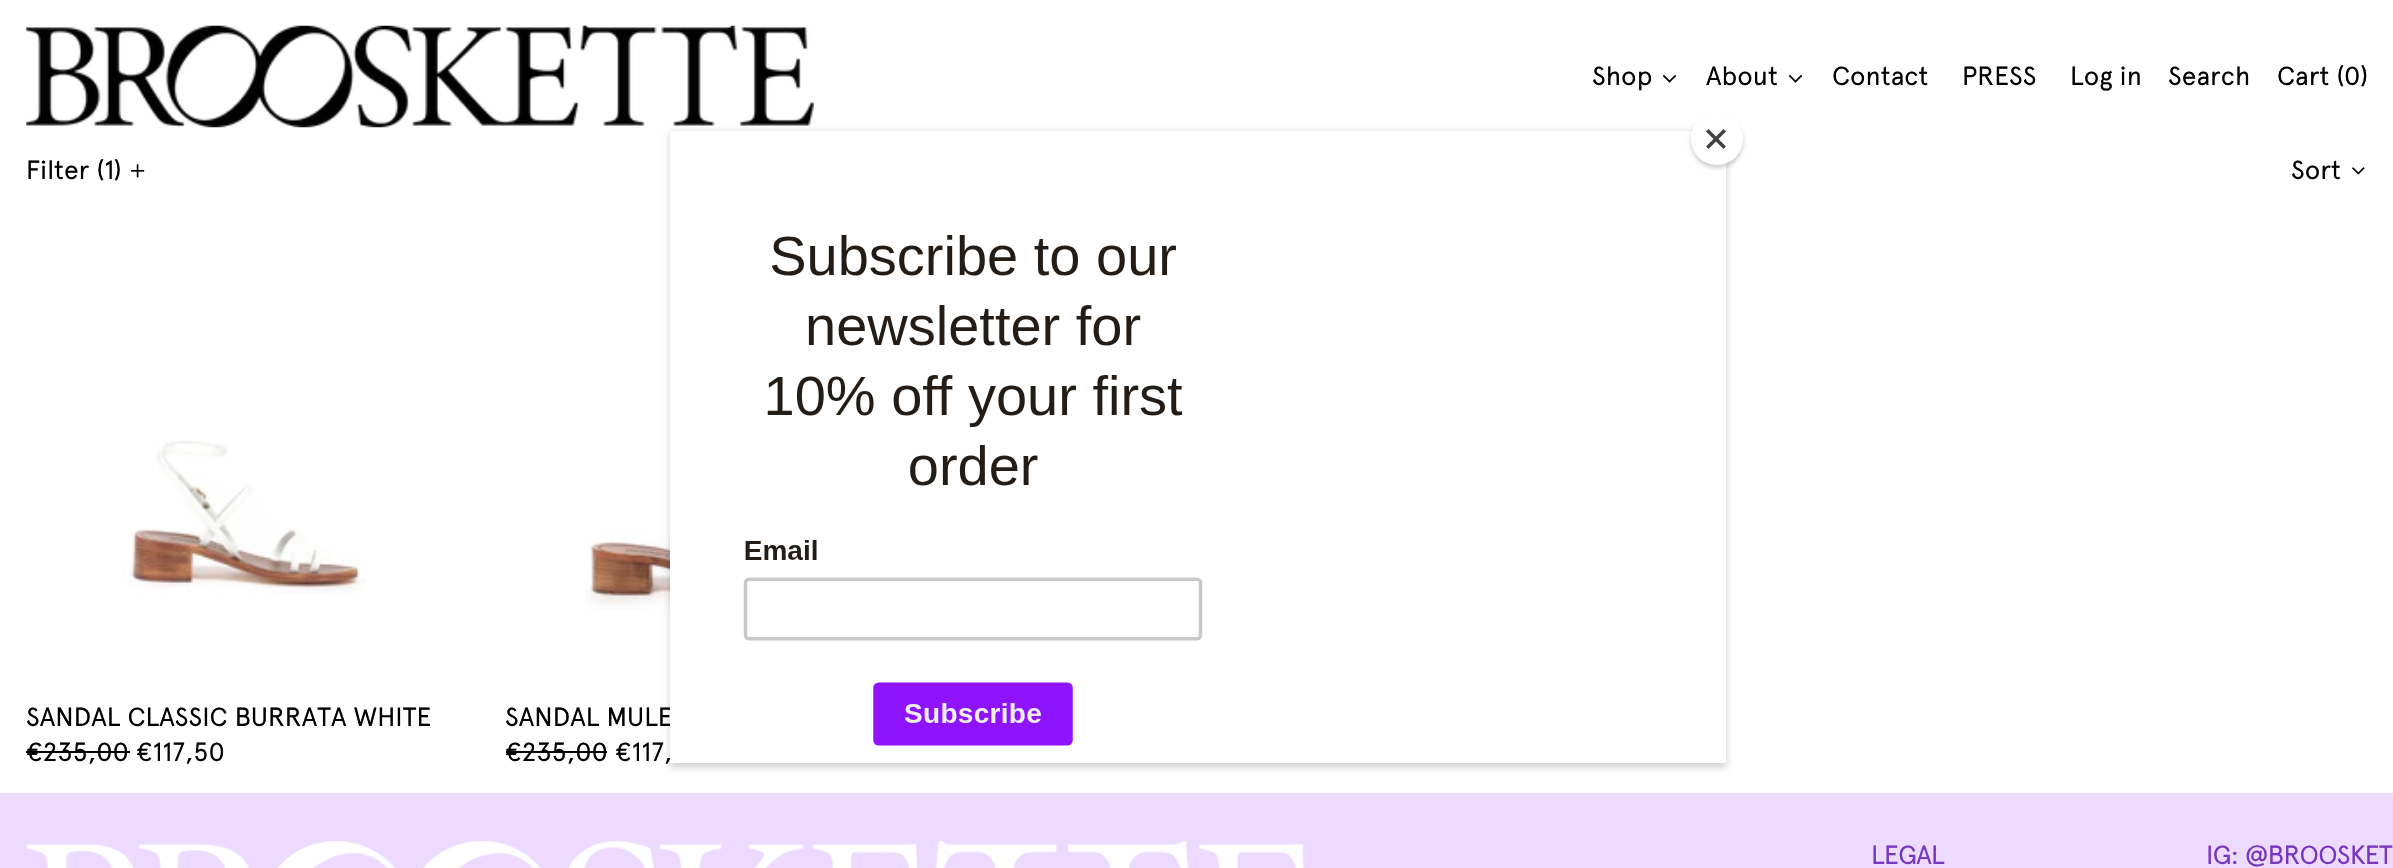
void draw(SkCanvas* canvas) {
	SkPaint paint;
	paint.setAntiAlias(true);
	auto spacedText = [&](const char* s, float x, float y, const SkFont& font, const SkPaint& ink, float letter, float word) {
		std::vector<SkGlyphID> glyphs(font.countText(s, strlen(s), SkTextEncoding::kUTF8));
		std::vector<float> xs(glyphs.size());
		font.textToGlyphs(s, strlen(s), SkTextEncoding::kUTF8, glyphs);
		font.getXPos(glyphs, xs, x);
		float extra = 0;
		for (size_t i = 0; i < glyphs.size(); i++) {
			xs[i] += extra;
			extra += letter + word * (glyphs[i] == font.unicharToGlyph(' '));
		}
		canvas->drawTextBlob(SkTextBlob::MakeFromPosHGlyphs(glyphs, xs, y, font), 0, 0, ink);
	};
	auto svgPath = [&](const char* data, bool evenOdd = false) {
		SkPath result = *SkParsePath::FromSVGString(data);
		if (evenOdd) result.setFillType(SkPathFillType::kEvenOdd);
		return result;
	};
	canvas->clear(0xffffffff);
	canvas->drawImageRect(SkImages::DeferredFromEncodedData(SkData::MakeFromFileName("img1.png")), SkRect::MakeXYWH(26, 25, 788, 103), SkSamplingOptions());
	SkFont f1(fontMgr->matchFamilyStyle("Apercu", SkFontStyle::Normal()), 26.25);
	f1.setSubpixel(true);
	paint.setColor(0xff000000);
	canvas->drawString("Shop", 1592, 85, f1, paint);
	canvas->drawImageRect(SkImages::DeferredFromEncodedData(SkData::MakeFromFileName("img2.png")), SkRect::MakeXYWH(1662, 74, 15, 9), SkSamplingOptions());
	canvas->drawString("About", 1706, 85, f1, paint);
	canvas->drawImageRect(SkImages::DeferredFromEncodedData(SkData::MakeFromFileName("img2.png")), SkRect::MakeXYWH(1788, 74, 15, 9), SkSamplingOptions());
	canvas->drawString("Contact", 1832, 85, f1, paint);
	canvas->drawString("PRESS", 1962, 85, f1, paint);
	canvas->drawString("Log in", 2070, 85, f1, paint);
	canvas->drawString("Search", 2168, 85, f1, paint);
	canvas->drawString("Cart (0)", 2277, 85, f1, paint);
	canvas->drawString("Filter (1)", 26, 179, f1, paint);
	canvas->drawImageRect(SkImages::DeferredFromEncodedData(SkData::MakeFromFileName("img3.png")), SkRect::MakeXYWH(131, 164, 14, 14), SkSamplingOptions());
	canvas->drawString("Sort", 2291, 179, f1, paint);
	canvas->drawImageRect(SkImages::DeferredFromEncodedData(SkData::MakeFromFileName("img4.png")), SkRect::MakeXYWH(2352, 167, 13, 8), SkSamplingOptions());
	canvas->drawImageRect(SkImages::DeferredFromEncodedData(SkData::MakeFromFileName("img5.png")), SkRect::MakeXYWH(123, 440, 243, 154), SkSamplingOptions());
	canvas->drawString("SANDAL CLASSIC BURRATA WHITE", 26, 726, f1, paint);
	canvas->drawString("€235,00", 26, 761, f1, paint);
	canvas->drawRect(SkRect::MakeXYWH(26, 751, 104, 2), paint);
	paint.setColor(0xff060606);
	canvas->drawString("€117,50", 136, 761, f1, paint);
	canvas->drawImageRect(SkImages::DeferredFromEncodedData(SkData::MakeFromFileName("img6.png")), SkRect::MakeXYWH(585, 525, 85, 85), SkSamplingOptions());
	paint.setColor(0xff000000);
	canvas->drawString("SANDAL MULE", 505, 726, f1, paint);
	canvas->drawString("€235,00", 505, 761, f1, paint);
	canvas->drawRect(SkRect::MakeXYWH(506, 751, 101, 2), paint);
	paint.setColor(0xff060606);
	canvas->drawString("€117,", 615, 761, f1, paint);
	paint.setColor(0xffecdaff);
	canvas->drawRect(SkRect::MakeXYWH(0, 793, 2393, 75), paint);
	canvas->drawImageRect(SkImages::DeferredFromEncodedData(SkData::MakeFromFileName("img7.png")), SkRect::MakeXYWH(26, 841, 1278, 27), SkSamplingOptions());
	paint.setColor(0xff7736bf);
	spacedText("LEGAL", 1871, 864, f1, paint, -0.7, 0);
	spacedText("IG: @BROOSKET", 2206, 864, f1, paint, -0.7, 0);
	paint.setColor(0x33000000);
	paint.setMaskFilter(SkMaskFilter::MakeBlur(kNormal_SkBlurStyle, 3.5));
	canvas->drawRect(SkRect::MakeXYWH(670, 133, 1056, 634), paint);
	paint.setMaskFilter(nullptr);
	canvas->drawImageRect(SkImages::DeferredFromEncodedData(SkData::MakeFromFileName("img8.png")), SkRect::MakeXYWH(670, 131, 1056, 632), SkSamplingOptions());
	paint.setMaskFilter(SkMaskFilter::MakeBlur(kNormal_SkBlurStyle, 2));
	canvas->drawRoundRect(SkRect::MakeXYWH(1691, 116, 52, 52), 26, 26, paint);
	paint.setMaskFilter(nullptr);
	paint.setColor(0xffffffff);
	canvas->drawRoundRect(SkRect::MakeXYWH(1691, 112, 52, 53), 26, 26, paint);
	paint.setColor(0xff414141);
	canvas->drawPath(svgPath("M1723.5 129L1726 131.5L1708.5 149L1706 146.5Z"), paint);
	canvas->drawPath(svgPath("M1706 131.5L1708.5 129L1726 146.5L1723.5 149Z"), paint);
}
